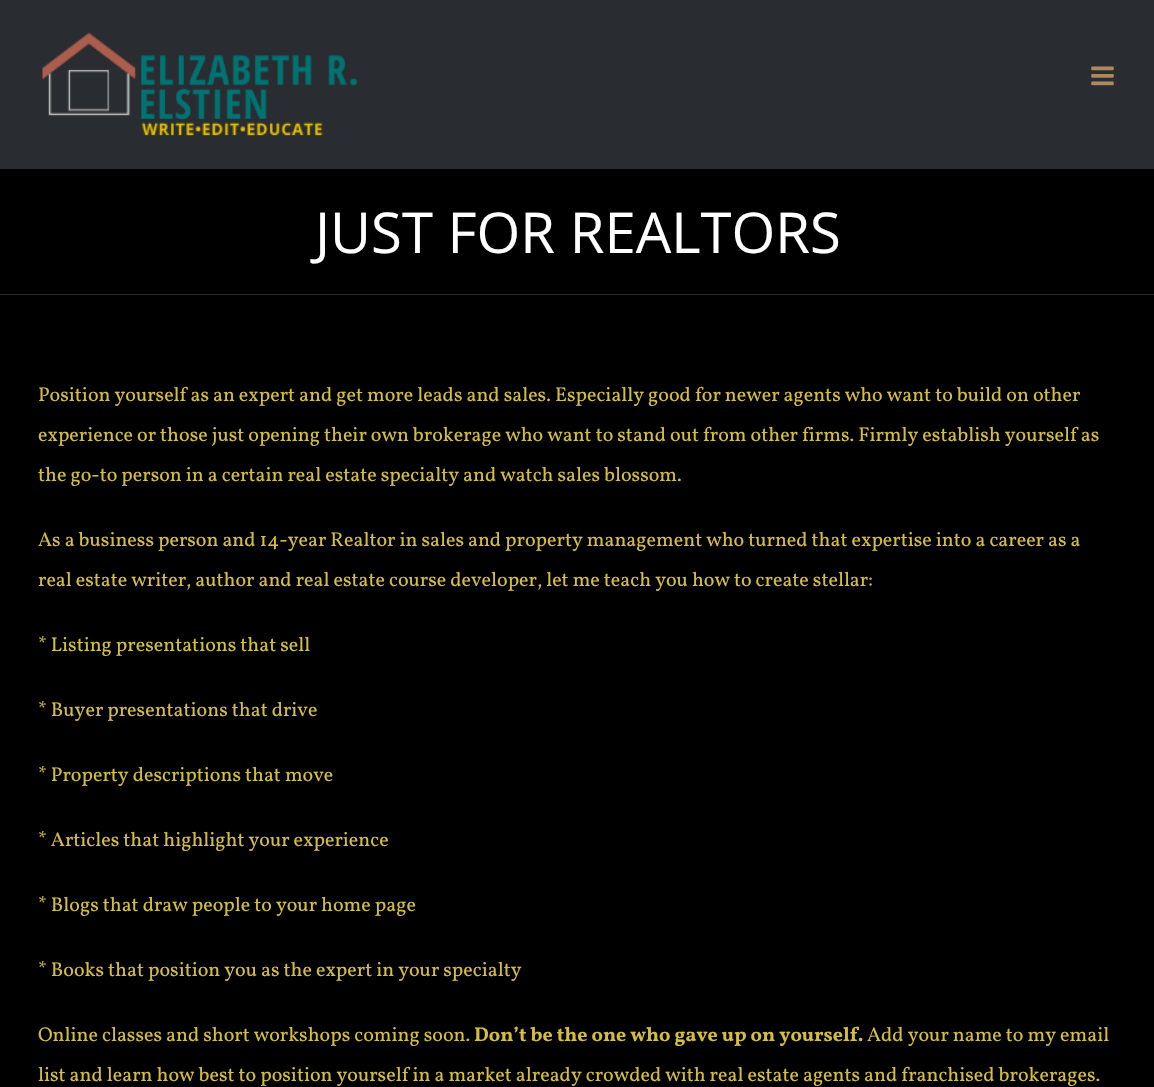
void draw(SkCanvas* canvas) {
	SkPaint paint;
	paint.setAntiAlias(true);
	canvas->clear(0xff000000);
	paint.setColor(0xff292c30);
	canvas->drawRect(SkRect::MakeXYWH(0, 0, 1154, 169), paint);
	canvas->drawImageRect(SkImages::DeferredFromEncodedData(SkData::MakeFromFileName("img1.png")), SkRect::MakeXYWH(42, 32, 316, 104), SkSamplingOptions());
	canvas->drawImageRect(SkImages::DeferredFromEncodedData(SkData::MakeFromFileName("img2.png")), SkRect::MakeXYWH(1091, 66, 23, 20), SkSamplingOptions());
	canvas->drawRect(SkRect::MakeXYWH(0, 294, 1154, 1), paint);
	SkFont f1(fontMgr->matchFamilyStyle("Open Sans", SkFontStyle::Normal()), 56.25);
	f1.setSubpixel(true);
	paint.setColor(0xffffffff);
	canvas->drawString("JUST FOR REALTORS", 315, 253, f1, paint);
	SkFont f2(fontMgr->matchFamilyStyle("Vollkorn", SkFontStyle::Normal()), 20);
	f2.setSubpixel(true);
	paint.setColor(0xffd4bd44);
	canvas->drawString("Position yourself as an expert and get more leads and sales. Especially good for newer agents who want to build on other", 38, 401, f2, paint);
	canvas->drawString("experience or those just opening their own brokerage who want to stand out from other firms. Firmly establish yourself as", 38, 441, f2, paint);
	canvas->drawString("the go-to person in a certain real estate specialty and watch sales blossom.", 38, 481, f2, paint);
	canvas->drawString("As a business person and 14-year Realtor in sales and property management who turned that expertise into a career as a", 38, 546, f2, paint);
	canvas->drawString("real estate writer, author and real estate course developer, let me teach you how to create stellar:", 38, 586, f2, paint);
	canvas->drawString("* Listing presentations that sell", 38, 651, f2, paint);
	canvas->drawString("* Buyer presentations that drive", 38, 716, f2, paint);
	canvas->drawString("* Property descriptions that move", 38, 781, f2, paint);
	canvas->drawString("* Articles that highlight your experience", 38, 846, f2, paint);
	canvas->drawString("* Blogs that draw people to your home page", 38, 911, f2, paint);
	canvas->drawString("* Books that position you as the expert in your specialty", 38, 976, f2, paint);
	canvas->drawString("Online classes and short workshops coming soon.", 38, 1041, f2, paint);
	SkFont f3(fontMgr->matchFamilyStyle("Vollkorn", SkFontStyle::Bold()), 20);
	f3.setSubpixel(true);
	canvas->drawString("Don’t be the one who gave up on yourself.", 474, 1041, f3, paint);
	canvas->drawString("Add your name to my email", 867, 1041, f2, paint);
	canvas->drawString("list and learn how best to position yourself in a market already crowded with real estate agents and franchised brokerages.", 38, 1081, f2, paint);
}
